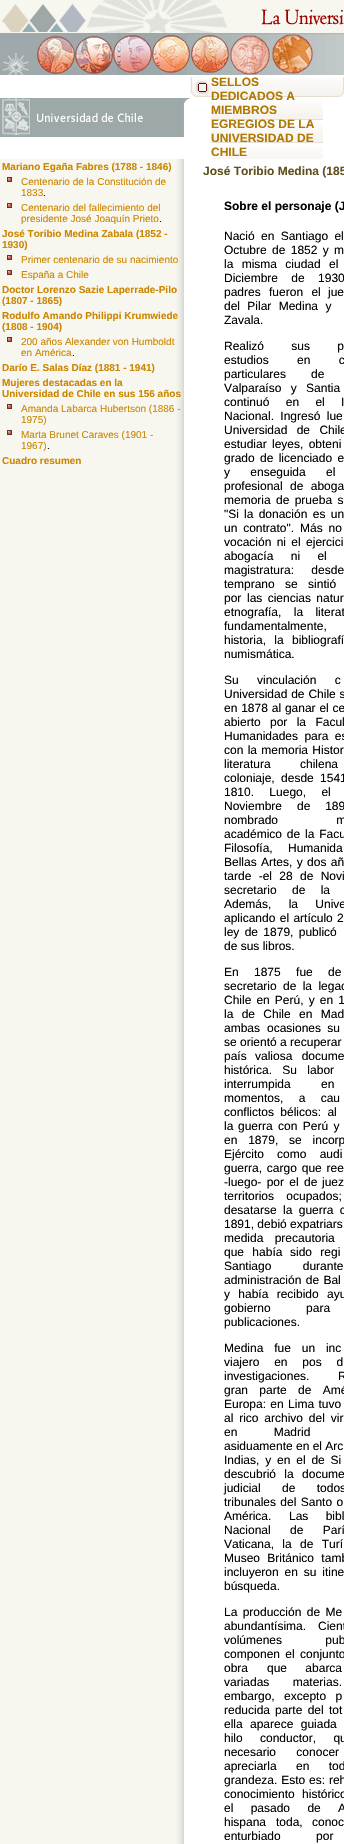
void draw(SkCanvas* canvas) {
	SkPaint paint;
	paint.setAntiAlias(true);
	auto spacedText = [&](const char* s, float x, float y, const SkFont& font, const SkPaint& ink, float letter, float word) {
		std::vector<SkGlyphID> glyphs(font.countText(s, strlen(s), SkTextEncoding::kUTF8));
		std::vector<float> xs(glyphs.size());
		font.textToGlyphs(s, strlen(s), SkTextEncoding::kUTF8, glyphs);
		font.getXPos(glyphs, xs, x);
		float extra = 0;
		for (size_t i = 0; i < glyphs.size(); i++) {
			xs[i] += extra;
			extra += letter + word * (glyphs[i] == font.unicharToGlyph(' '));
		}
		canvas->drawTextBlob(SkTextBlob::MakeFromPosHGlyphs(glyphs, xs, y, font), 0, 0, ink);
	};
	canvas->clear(0xffffffff);
	paint.setColor(0xfff7f7ef);
	canvas->drawRect(SkRect::MakeXYWH(0, 0, 344, 33), paint);
	canvas->drawImageRect(SkImages::DeferredFromEncodedData(SkData::MakeFromFileName("img1.png")), SkRect::MakeXYWH(2, 0, 225, 33), SkSamplingOptions());
	canvas->drawImageRect(SkImages::DeferredFromEncodedData(SkData::MakeFromFileName("img2.png")), SkRect::MakeXYWH(261, 9, 83, 16), SkSamplingOptions());
	canvas->drawImageRect(SkImages::DeferredFromEncodedData(SkData::MakeFromFileName("img3.png")), SkRect::MakeXYWH(0, 33, 344, 42), SkSamplingOptions());
	canvas->drawImageRect(SkImages::DeferredFromEncodedData(SkData::MakeFromFileName("img4.png")), SkRect::MakeXYWH(0, 98, 184, 39), SkSamplingOptions());
	canvas->drawImageRect(SkImages::DeferredFromEncodedData(SkData::MakeFromFileName("img5.png")), SkRect::MakeXYWH(184, 98, 6, 5), SkSamplingOptions());
	canvas->drawImageRect(SkImages::DeferredFromEncodedData(SkData::MakeFromFileName("img6.png")), SkRect::MakeXYWH(190, 77, 21, 20), SkSamplingOptions());
	canvas->drawImageRect(SkImages::DeferredFromEncodedData(SkData::MakeFromFileName("img7.png")), SkRect::MakeXYWH(211, 78, 112, 81), SkSamplingOptions());
	SkFont f1(fontMgr->matchFamilyStyle("Liberation Sans", SkFontStyle::Bold()), 12);
	f1.setSubpixel(true);
	paint.setColor(0xffaf7800);
	canvas->drawString("SELLOS", 211, 86, f1, paint);
	canvas->drawString("DEDICADOS A", 211, 100, f1, paint);
	canvas->drawString("MIEMBROS", 211, 114, f1, paint);
	canvas->drawString("EGREGIOS DE LA", 211, 128, f1, paint);
	canvas->drawString("UNIVERSIDAD DE", 211, 142, f1, paint);
	canvas->drawString("CHILE", 211, 156, f1, paint);
	canvas->drawImageRect(SkImages::DeferredFromEncodedData(SkData::MakeFromFileName("img8.png")), SkRect::MakeXYWH(323, 77, 21, 20), SkSamplingOptions());
	canvas->drawImageRect(SkImages::DeferredFromEncodedData(SkData::MakeFromFileName("img9.png")), SkRect::MakeXYWH(0, 159, 184, 1685), SkSamplingOptions());
	SkFont f2(fontMgr->matchFamilyStyle("Liberation Sans", SkFontStyle::Bold()), 10);
	f2.setSubpixel(true);
	paint.setColor(0xffcc8600);
	canvas->drawString("Mariano Egaña Fabres (1788 - 1846)", 2, 170, f2, paint);
	canvas->drawImageRect(SkImages::DeferredFromEncodedData(SkData::MakeFromFileName("img10.png")), SkRect::MakeXYWH(7, 177, 5, 5), SkSamplingOptions());
	SkFont f3(fontMgr->matchFamilyStyle("Liberation Sans", SkFontStyle::Normal()), 10);
	f3.setSubpixel(true);
	canvas->drawString("Centenario de la Constitución de", 21, 185, f3, paint);
	canvas->drawString("1833", 21, 196, f3, paint);
	paint.setColor(0xff000000);
	canvas->drawString(".", 43, 196, f3, paint);
	canvas->drawImageRect(SkImages::DeferredFromEncodedData(SkData::MakeFromFileName("img10.png")), SkRect::MakeXYWH(7, 203, 5, 5), SkSamplingOptions());
	paint.setColor(0xffcc8600);
	canvas->drawString("Centenario del fallecimiento del", 21, 211, f3, paint);
	canvas->drawString("presidente José Joaquín Prieto", 21, 222, f3, paint);
	paint.setColor(0xff000000);
	canvas->drawString(".", 159, 222, f3, paint);
	paint.setColor(0xffcc8600);
	canvas->drawString("José Toribio Medina Zabala (1852 -", 2, 237, f2, paint);
	canvas->drawString("1930)", 2, 248, f2, paint);
	canvas->drawImageRect(SkImages::DeferredFromEncodedData(SkData::MakeFromFileName("img10.png")), SkRect::MakeXYWH(7, 255, 5, 5), SkSamplingOptions());
	canvas->drawString("Primer centenario de su nacimiento", 21, 263, f3, paint);
	canvas->drawImageRect(SkImages::DeferredFromEncodedData(SkData::MakeFromFileName("img10.png")), SkRect::MakeXYWH(7, 270, 5, 5), SkSamplingOptions());
	canvas->drawString("España a Chile", 21, 278, f3, paint);
	canvas->drawString("Doctor Lorenzo Sazie Laperrade-Pilo", 2, 293, f2, paint);
	canvas->drawString("(1807 - 1865)", 2, 304, f2, paint);
	canvas->drawString("Rodulfo Amando Philippi Krumwiede", 2, 319, f2, paint);
	canvas->drawString("(1808 - 1904)", 2, 330, f2, paint);
	canvas->drawImageRect(SkImages::DeferredFromEncodedData(SkData::MakeFromFileName("img10.png")), SkRect::MakeXYWH(7, 337, 5, 5), SkSamplingOptions());
	canvas->drawString("200 años Alexander von Humboldt", 21, 345, f3, paint);
	canvas->drawString("en América", 21, 356, f3, paint);
	paint.setColor(0xff000000);
	canvas->drawString(".", 72, 356, f3, paint);
	paint.setColor(0xffcc8600);
	canvas->drawString("Darío E. Salas Díaz (1881 - 1941)", 2, 371, f2, paint);
	canvas->drawString("Mujeres destacadas en la", 2, 386, f2, paint);
	canvas->drawString("Universidad de Chile en sus 156 años", 2, 397, f2, paint);
	canvas->drawImageRect(SkImages::DeferredFromEncodedData(SkData::MakeFromFileName("img10.png")), SkRect::MakeXYWH(7, 404, 5, 5), SkSamplingOptions());
	canvas->drawString("Amanda Labarca Hubertson (1886 -", 21, 412, f3, paint);
	canvas->drawString("1975)", 21, 423, f3, paint);
	canvas->drawImageRect(SkImages::DeferredFromEncodedData(SkData::MakeFromFileName("img10.png")), SkRect::MakeXYWH(7, 430, 5, 5), SkSamplingOptions());
	canvas->drawString("Marta Brunet Caraves (1901 -", 21, 438, f3, paint);
	canvas->drawString("1967)", 21, 449, f3, paint);
	paint.setColor(0xff000000);
	canvas->drawString(".", 47, 449, f3, paint);
	paint.setColor(0xffcc8600);
	canvas->drawString("Cuadro resumen", 2, 464, f2, paint);
	paint.setColor(0xff605020);
	canvas->drawString("José Toribio Medina (185", 203, 175, f1, paint);
	paint.setColor(0xff000000);
	canvas->drawString("Sobre el personaje (J", 224, 210, f1, paint);
	SkFont f4(fontMgr->matchFamilyStyle("Liberation Sans", SkFontStyle::Normal()), 12);
	f4.setSubpixel(true);
	spacedText("Nació en Santiago el", 224, 240, f4, paint, 0, 3);
	spacedText("Octubre de 1852 y m", 224, 254, f4, paint, 0, 2);
	spacedText("la misma ciudad el", 224, 268, f4, paint, 0, 5);
	spacedText("Diciembre de 1930", 224, 282, f4, paint, 0, 10);
	spacedText("padres fueron el", 224, 296, f4, paint, 0, 5);
	spacedText("jue", 328, 296, f4, paint, 0, 5);
	spacedText("del Pilar Medina y", 224, 310, f4, paint, 0, 4);
	canvas->drawString("Zavala.", 224, 324, f4, paint);
	spacedText("Realizó sus p", 224, 350, f4, paint, 0, 24);
	spacedText("estudios en c", 224, 364, f4, paint, 0, 25);
	canvas->drawString("particulares", 224, 378, f4, paint);
	spacedText("de", 311, 378, f4, paint, 0, 22);
	spacedText("Valparaíso y Santia", 224, 392, f4, paint, 0, 6);
	spacedText("continuó en el I", 224, 406, f4, paint, 0, 13);
	spacedText("Nacional. Ingresó lue", 224, 420, f4, paint, 0, 3);
	spacedText("Universidad de Chile", 224, 434, f4, paint, 0, 6);
	canvas->drawString("estudiar", 224, 448, f4, paint);
	spacedText("leyes, obteni", 272, 448, f4, paint, 0, 2);
	spacedText("grado de licenciado e", 224, 462, f4, paint, 0, 2);
	spacedText("y enseguida el", 224, 476, f4, paint, 0, 17);
	spacedText("profesional de aboga", 224, 490, f4, paint, 0, 4);
	spacedText("memoria de prueba s", 224, 504, f4, paint, 0, 2);
	canvas->drawString("\"Si", 224, 518, f4, paint);
	spacedText("la donación es un", 244, 518, f4, paint, 0, 2);
	spacedText("un contrato\". Más no", 224, 532, f4, paint, 0, 2.5);
	spacedText("vocación ni el ejercici", 224, 546, f4, paint, 0, 2);
	spacedText("abogacía ni el", 224, 560, f4, paint, 0, 14);
	spacedText("magistratura: desde", 224, 574, f4, paint, 0, 14);
	spacedText("temprano se sintió", 224, 588, f4, paint, 0, 7);
	canvas->drawString("por", 224, 602, f4, paint);
	spacedText("las ciencias natur", 247, 602, f4, paint, 0, 2);
	spacedText("etnografía, la literat", 224, 616, f4, paint, 0, 9);
	canvas->drawString("fundamentalmente,", 224, 630, f4, paint);
	spacedText("historia, la bibliografí", 224, 644, f4, paint, 0, 5);
	canvas->drawString("numismática.", 224, 658, f4, paint);
	spacedText("Su vinculación c", 224, 684, f4, paint, 0, 15);
	spacedText("Universidad de Chile s", 224, 698, f4, paint, 0, 0.5);
	spacedText("en 1878 al ganar el ce", 224, 712, f4, paint, 0, 0.5);
	spacedText("abierto por la Facul", 224, 726, f4, paint, 0, 6);
	spacedText("Humanidades para es", 224, 740, f4, paint, 0, 3);
	spacedText("con la memoria Histor", 224, 754, f4, paint, 0, 1);
	canvas->drawString("literatura", 224, 768, f4, paint);
	spacedText("chilena", 300, 768, f4, paint, 0, 26);
	spacedText("coloniaje, desde 1541", 224, 782, f4, paint, 0, 3);
	spacedText("1810. Luego, el", 224, 796, f4, paint, 0, 12);
	canvas->drawString("Noviembre", 224, 810, f4, paint);
	spacedText("de 189", 297, 810, f4, paint, 0, 11.5);
	spacedText("nombrado m", 224, 824, f4, paint, 0, 55);
	spacedText("académico de la Facu", 224, 838, f4, paint, 0, 1.5);
	canvas->drawString("Filosofía,", 224, 852, f4, paint);
	spacedText("Humanida", 288, 852, f4, paint, 0, 12);
	spacedText("Bellas Artes, y dos añ", 224, 866, f4, paint, 0, 1);
	spacedText("tarde -el 28", 224, 880, f4, paint, 0, 4);
	spacedText("de Novi", 300, 880, f4, paint, 0, 4);
	spacedText("secretario de la", 224, 894, f4, paint, 0, 12);
	spacedText("Además, la Unive", 224, 908, f4, paint, 0, 14);
	spacedText("aplicando el artículo 2", 224, 922, f4, paint, 0, 1);
	spacedText("ley de 1879, publicó", 224, 936, f4, paint, 0, 2);
	canvas->drawString("de sus libros.", 224, 950, f4, paint);
	spacedText("En 1875 fue de", 224, 976, f4, paint, 0, 12);
	spacedText("secretario de la legac", 224, 990, f4, paint, 0, 3);
	spacedText("Chile en Perú, y en 1", 224, 1004, f4, paint, 0, 1.75);
	spacedText("la de Chile en Mad", 224, 1018, f4, paint, 0, 5);
	canvas->drawString("ambas", 224, 1032, f4, paint);
	spacedText("ocasiones su", 267, 1032, f4, paint, 0, 3);
	canvas->drawString("se orientó a recuperar", 224, 1046, f4, paint);
	canvas->drawString("país", 224, 1060, f4, paint);
	spacedText("valiosa docume", 255, 1060, f4, paint, 0, 6);
	spacedText("histórica. Su labor", 224, 1074, f4, paint, 0, 7);
	canvas->drawString("interrumpida", 224, 1088, f4, paint);
	spacedText("en", 321, 1088, f4, paint, 0, 26);
	spacedText("momentos, a cau", 224, 1102, f4, paint, 0, 12);
	spacedText("conflictos bélicos: al", 224, 1116, f4, paint, 0, 3);
	canvas->drawString("la", 224, 1130, f4, paint);
	spacedText("guerra con Perú y", 238, 1130, f4, paint, 0, 2);
	spacedText("en 1879, se incorp", 224, 1144, f4, paint, 0, 7.5);
	canvas->drawString("Ejército", 224, 1158, f4, paint);
	spacedText("como audi", 277, 1158, f4, paint, 0, 10);
	spacedText("guerra, cargo que ree", 224, 1172, f4, paint, 0, 1.5);
	spacedText("-luego- por el de", 224, 1186, f4, paint, 0, 2);
	spacedText("juez", 322, 1186, f4, paint, 0, 2);
	spacedText("territorios ocupados;", 224, 1200, f4, paint, 0, 9);
	spacedText("desatarse la guerra c", 224, 1214, f4, paint, 0, 3);
	canvas->drawString("1891, debió expatriars", 224, 1228, f4, paint);
	spacedText("medida precautoria", 224, 1242, f4, paint, 0, 8);
	spacedText("que había", 224, 1256, f4, paint, 0, 5);
	spacedText("sido regi", 290, 1256, f4, paint, 0, 5);
	spacedText("Santiago durante", 224, 1270, f4, paint, 0, 28);
	spacedText("administración de Bal", 224, 1284, f4, paint, 0, 1);
	spacedText("y había recibido ayu", 224, 1298, f4, paint, 0, 5);
	spacedText("gobierno para", 224, 1312, f4, paint, 0, 32);
	canvas->drawString("publicaciones.", 224, 1326, f4, paint);
	spacedText("Medina fue un inc", 224, 1352, f4, paint, 0, 7.5);
	spacedText("viajero en pos d", 224, 1366, f4, paint, 0, 11.5);
	canvas->drawString("investigaciones.", 224, 1380, f4, paint);
	canvas->drawString("R", 338, 1380, f4, paint);
	spacedText("gran parte de Amé", 224, 1394, f4, paint, 0, 8);
	spacedText("Europa: en Lima tuvo", 224, 1408, f4, paint, 0, 1);
	spacedText("al rico archivo del vir", 224, 1422, f4, paint, 0, 2.5);
	spacedText("en Madrid", 224, 1436, f4, paint, 0, 33);
	canvas->drawString("asiduamente", 224, 1450, f4, paint);
	canvas->drawString("en el Arc", 296, 1450, f4, paint);
	spacedText("Indias, y en el de Si", 224, 1464, f4, paint, 0, 2.5);
	spacedText("descubrió la docume", 224, 1478, f4, paint, 0, 5);
	spacedText("judicial de todos", 224, 1492, f4, paint, 0, 18);
	spacedText("tribunales del Santo o", 224, 1506, f4, paint, 0, 1);
	canvas->drawString("América.", 224, 1520, f4, paint);
	spacedText("Las bibl", 289, 1520, f4, paint, 0, 14);
	spacedText("Nacional de Parí", 224, 1534, f4, paint, 0, 16);
	spacedText("Vaticana, la de Turí", 224, 1548, f4, paint, 0, 5);
	spacedText("Museo Británico tamb", 224, 1562, f4, paint, 0, 4);
	spacedText("incluyeron en su itine", 224, 1576, f4, paint, 0, 2.5);
	canvas->drawString("búsqueda.", 224, 1590, f4, paint);
	spacedText("La producción de Me", 224, 1616, f4, paint, 0, 2);
	canvas->drawString("abundantísima.", 224, 1630, f4, paint);
	spacedText("Cient", 318, 1630, f4, paint, 0, 8);
	spacedText("volúmenes pub", 224, 1644, f4, paint, 0, 40);
	spacedText("componen el conjunto", 224, 1658, f4, paint, 0, 2);
	canvas->drawString("obra", 224, 1672, f4, paint);
	spacedText("que abarca", 267, 1672, f4, paint, 0, 15);
	spacedText("variadas materias.", 224, 1686, f4, paint, 0, 20);
	spacedText("embargo, excepto p", 224, 1700, f4, paint, 0, 6);
	canvas->drawString("reducida", 224, 1714, f4, paint);
	spacedText("parte del tot", 275, 1714, f4, paint, 0, 2);
	spacedText("ella aparece guiada", 224, 1728, f4, paint, 0, 4);
	spacedText("hilo conductor, qu", 224, 1742, f4, paint, 0, 14);
	spacedText("necesario conocer", 224, 1756, f4, paint, 0, 17);
	spacedText("apreciarla en tod", 224, 1770, f4, paint, 0, 16);
	spacedText("grandeza. Esto es: reh", 224, 1784, f4, paint, 0, 0.5);
	spacedText("conocimiento histórico", 224, 1798, f4, paint, 0, 4);
	spacedText("el pasado de A", 224, 1812, f4, paint, 0, 14);
	canvas->drawString("hispana", 224, 1826, f4, paint);
	spacedText("toda, conoc", 276, 1826, f4, paint, 0, 6);
	spacedText("enturbiado por", 224, 1840, f4, paint, 0, 32);
}
